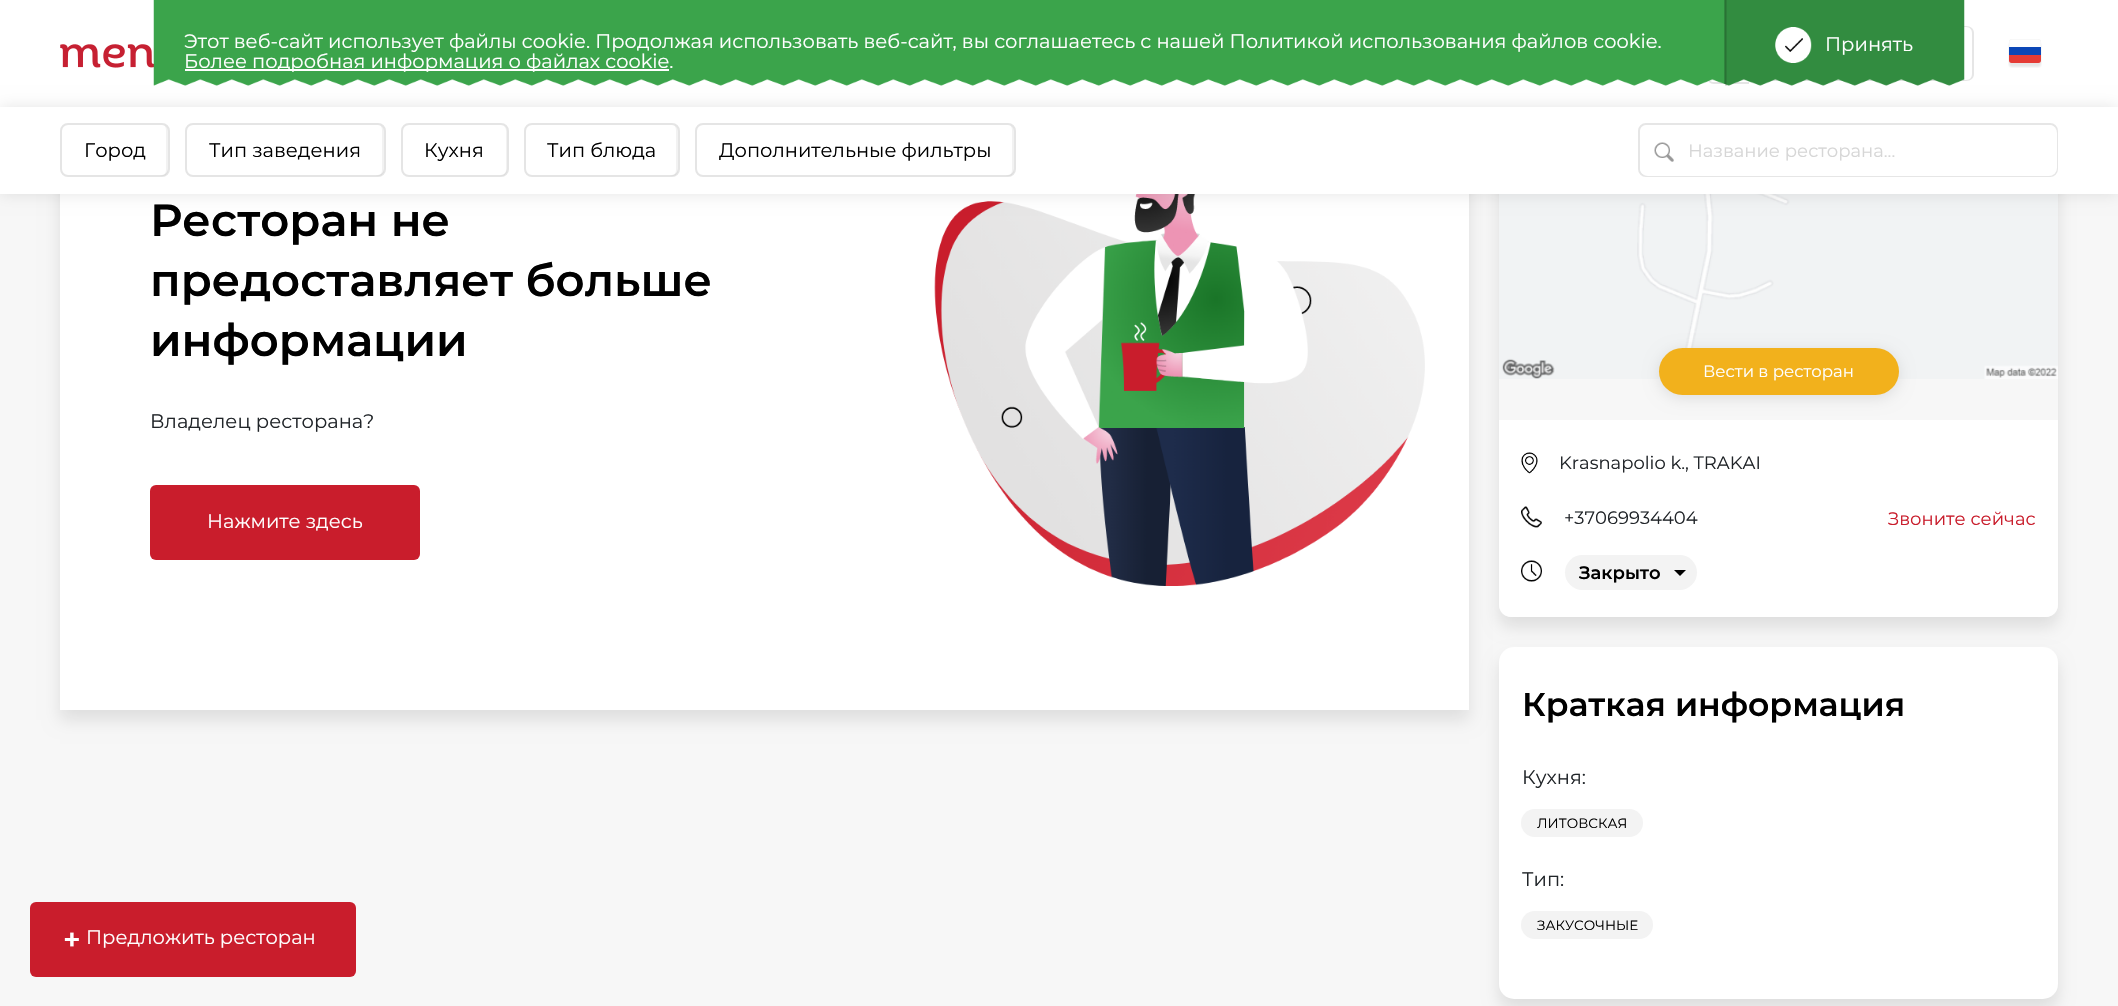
void draw(SkCanvas* canvas) {
	SkPaint paint;
	paint.setAntiAlias(true);
	auto svgPath = [&](const char* data, bool evenOdd = false) {
		SkPath result = *SkParsePath::FromSVGString(data);
		if (evenOdd) result.setFillType(SkPathFillType::kEvenOdd);
		return result;
	};
	canvas->clear(0xfff7f7f7);
	paint.setColor(0x1a000000);
	paint.setMaskFilter(SkMaskFilter::MakeBlur(kNormal_SkBlurStyle, 8));
	canvas->drawRect(SkRect::MakeXYWH(60, 96, 1409, 624), paint);
	paint.setMaskFilter(nullptr);
	paint.setMaskFilter(SkMaskFilter::MakeBlur(kNormal_SkBlurStyle, 8));
	canvas->drawRoundRect(SkRect::MakeXYWH(1499, 657, 559, 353), 15, 15, paint);
	paint.setMaskFilter(nullptr);
	paint.setColor(0xffffffff);
	canvas->drawRoundRect(SkRect::MakeXYWH(1499, 647, 559, 352), 15, 15, paint);
	canvas->save();
	canvas->clipPath(svgPath("M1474 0H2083V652H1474ZM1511-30H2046C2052.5-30 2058-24.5 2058-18V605C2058 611.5 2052.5 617 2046 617H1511C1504.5 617 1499 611.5 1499 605V-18C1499-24.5 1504.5-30 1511-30Z", true), true);
	paint.setColor(0x1a000000);
	paint.setMaskFilter(SkMaskFilter::MakeBlur(kNormal_SkBlurStyle, 8));
	canvas->drawRoundRect(SkRect::MakeXYWH(1499, -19, 559, 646), 12, 12, paint);
	paint.setMaskFilter(nullptr);
	canvas->restore();
	paint.setColor(0xffffffff);
	canvas->drawRect(SkRect::MakeXYWH(0, 0, 2118, 107), paint);
	canvas->drawImageRect(SkImages::DeferredFromEncodedData(SkData::MakeFromFileName("img3.png")), SkRect::MakeXYWH(60, 44, 94, 24), SkSamplingOptions());
	canvas->drawRect(SkRect::MakeXYWH(60, 194, 1409, 516), paint);
	canvas->drawImageRect(SkImages::DeferredFromEncodedData(SkData::MakeFromFileName("img6.png")), SkRect::MakeXYWH(934, 194, 491, 392), SkSamplingOptions());
	canvas->drawImageRect(SkImages::DeferredFromEncodedData(SkData::MakeFromFileName("img7.png")), SkRect::MakeXYWH(1499, 194, 559, 185), SkSamplingOptions());
	paint.setColor(0x1a000000);
	paint.setMaskFilter(SkMaskFilter::MakeBlur(kNormal_SkBlurStyle, 7.5));
	canvas->drawRect(SkRect::MakeXYWH(0, 107, 2118, 87), paint);
	paint.setMaskFilter(nullptr);
	paint.setColor(0xffe5e5e5);
	canvas->drawPath(svgPath("M1714 26H1749V84H1714C1710 84 1707 81 1707 76V33C1707 29 1710 26 1714 26ZM1714 27H1749V82H1714C1711 82 1708 80 1708 76V33C1708 30 1711 27 1714 27Z", true), paint);
	paint.setColor(0xffe6e6e6);
	canvas->drawPath(svgPath("M1768 26H1966C1971 26 1974 29 1974 33V74C1974 78 1971 81 1966 81H1768ZM1768 27H1966C1970 27 1972 30 1972 33V74C1972 77 1970 80 1966 80H1768Z", true), paint);
	canvas->drawImageRect(SkImages::DeferredFromEncodedData(SkData::MakeFromFileName("img1.png")), SkRect::MakeXYWH(153, 0, 1812, 86), SkSamplingOptions());
	SkFont f1(fontMgr->matchFamilyStyle("Montserrat", SkFontStyle::Normal()), 19.5);
	f1.setSubpixel(true);
	paint.setColor(0xffffffff);
	canvas->drawString("Этот веб-сайт использует файлы cookie. Продолжая использовать веб-сайт, вы соглашаетесь с нашей Политикой использования файлов cookie.", 184, 48, f1, paint);
	canvas->drawRect(SkRect::MakeXYWH(185, 69, 484, 2), paint);
	canvas->drawString("Более подробная информация о файлах cookie.", 184, 68, f1, paint);
	paint.setColor(0x1a000000);
	canvas->drawRect(SkRect::MakeXYWH(1725, 0, 2, 86), paint);
	canvas->drawImageRect(SkImages::DeferredFromEncodedData(SkData::MakeFromFileName("img2.png")), SkRect::MakeXYWH(1775, 27, 37, 36), SkSamplingOptions());
	paint.setColor(0xffffffff);
	canvas->drawString("Принять", 1825, 51, f1, paint);
	canvas->drawImageRect(SkImages::DeferredFromEncodedData(SkData::MakeFromFileName("img4.png")), SkRect::MakeXYWH(2008, 39, 34, 29), SkSamplingOptions());
	canvas->drawRect(SkRect::MakeXYWH(0, 107, 2118, 87), paint);
	paint.setColor(0xfff2f2f2);
	canvas->drawPath(svgPath("M160 176H162C165 176 168 173 168 170V131C168 128 166 126 164 125C165 126 166 128 166 130V170C166 173 164 176 160 176Z"), paint);
	paint.setStroke(true);
	paint.setStrokeWidth(2);
	paint.setColor(0x1a000000);
	canvas->drawRoundRect(SkRect::MakeXYWH(61, 124, 108, 52), 7, 7, paint);
	paint.setStroke(false);
	paint.setColor(0xff000000);
	canvas->drawString("Город", 84, 157, f1, paint);
	paint.setColor(0xfff2f2f2);
	canvas->drawPath(svgPath("M376 176H378C381 176 384 173 384 170V131C384 128 382 126 380 125C381 126 382 128 382 130V170C382 173 380 176 376 176Z"), paint);
	paint.setStroke(true);
	paint.setColor(0x1a000000);
	canvas->drawRoundRect(SkRect::MakeXYWH(186, 124, 199, 52), 7, 7, paint);
	paint.setStroke(false);
	paint.setColor(0xff000000);
	canvas->drawString("Тип заведения", 209, 157, f1, paint);
	paint.setColor(0xfff2f2f2);
	canvas->drawPath(svgPath("M500 176H501C504 176 507 173 507 170V131C507 129 506 127 504 126C505 127 506 129 506 130V170C506 173 503 176 500 176Z"), paint);
	paint.setStroke(true);
	paint.setColor(0x1a000000);
	canvas->drawRoundRect(SkRect::MakeXYWH(402, 124, 106, 52), 7, 7, paint);
	paint.setStroke(false);
	paint.setColor(0xff000000);
	canvas->drawString("Кухня", 424, 157, f1, paint);
	paint.setColor(0xfff2f2f2);
	canvas->drawPath(svgPath("M670 176H672C675 176 678 173 678 170V131C678 128 676 126 674 125C675 126 676 128 676 130V170C676 173 674 176 670 176Z"), paint);
	paint.setStroke(true);
	paint.setColor(0x1a000000);
	canvas->drawRoundRect(SkRect::MakeXYWH(525, 124, 154, 52), 7, 7, paint);
	paint.setStroke(false);
	paint.setColor(0xff000000);
	canvas->drawString("Тип блюда", 547, 157, f1, paint);
	paint.setColor(0xfff2f2f2);
	canvas->drawPath(svgPath("M1006 176H1008C1011 176 1014 173 1014 170V131C1014 128 1012 126 1010 125C1011 126 1012 128 1012 130V170C1012 173 1010 176 1006 176Z"), paint);
	paint.setStroke(true);
	paint.setColor(0x1a000000);
	canvas->drawRoundRect(SkRect::MakeXYWH(696, 124, 319, 52), 7, 7, paint);
	paint.setStroke(false);
	paint.setColor(0xff000000);
	canvas->drawString("Дополнительные фильтры", 719, 157, f1, paint);
	paint.setStroke(true);
	paint.setColor(0xffe6e6e6);
	canvas->drawRoundRect(SkRect::MakeXYWH(1639, 124, 418, 52), 7, 7, paint);
	paint.setStroke(false);
	paint.setColor(0xffffffff);
	canvas->drawRoundRect(SkRect::MakeXYWH(1640, 125, 417, 51), 8, 8, paint);
	canvas->drawImageRect(SkImages::DeferredFromEncodedData(SkData::MakeFromFileName("img5.png")), SkRect::MakeXYWH(1654, 142, 20, 20), SkSamplingOptions());
	SkFont f2(fontMgr->matchFamilyStyle("Montserrat", SkFontStyle::Normal()), 18);
	f2.setSubpixel(true);
	paint.setColor(0xffd6d6d6);
	canvas->drawString("Название ресторана...", 1688, 157, f2, paint);
	SkFont f3(fontMgr->matchFamilyStyle("Montserrat", SkFontStyle(600, SkFontStyle::kNormal_Width, SkFontStyle::kUpright_Slant)), 45);
	f3.setSubpixel(true);
	paint.setColor(0xff000000);
	canvas->drawString("Ресторан не", 150, 236, f3, paint);
	canvas->drawString("предоставляет больше", 150, 296, f3, paint);
	canvas->drawString("информации", 150, 356, f3, paint);
	paint.setColor(0xff212529);
	canvas->drawString("Владелец ресторана?", 150, 428, f1, paint);
	paint.setColor(0xffc91d2c);
	canvas->drawRoundRect(SkRect::MakeXYWH(150, 485, 270, 75), 6, 6, paint);
	paint.setColor(0xffffffff);
	canvas->drawString("Нажмите здесь", 207, 528, f1, paint);
	paint.setColor(0x1a000000);
	paint.setMaskFilter(SkMaskFilter::MakeBlur(kNormal_SkBlurStyle, 7.5));
	canvas->drawRoundRect(SkRect::MakeXYWH(1659, 351, 240, 47), 23.5, 23.5, paint);
	paint.setMaskFilter(nullptr);
	paint.setColor(0xfff2b11c);
	canvas->drawRoundRect(SkRect::MakeXYWH(1659, 348, 240, 47), 23.5, 23.5, paint);
	SkFont f4(fontMgr->matchFamilyStyle("Montserrat", SkFontStyle::Normal()), 16.5);
	f4.setSubpixel(true);
	paint.setColor(0xffffffff);
	canvas->drawString("Вести в ресторан", 1703, 377, f4, paint);
	canvas->drawPath(svgPath("M1499 420H2058V605C2058 611.5 2052.5 617 2046 617H1511C1504.5 617 1499 611.5 1499 605Z"), paint);
	canvas->drawImageRect(SkImages::DeferredFromEncodedData(SkData::MakeFromFileName("img8.png")), SkRect::MakeXYWH(1521, 452, 17, 22), SkSamplingOptions());
	paint.setColor(0xff212529);
	canvas->drawString("Krasnapolio k., TRAKAI", 1559, 469, f2, paint);
	canvas->drawImageRect(SkImages::DeferredFromEncodedData(SkData::MakeFromFileName("img9.png")), SkRect::MakeXYWH(1521, 506, 21, 22), SkSamplingOptions());
	canvas->drawString("+37069934404", 1564, 524, f2, paint);
	paint.setColor(0xffc91d2c);
	canvas->drawString("Звоните сейчас", 1888, 525, f2, paint);
	canvas->drawImageRect(SkImages::DeferredFromEncodedData(SkData::MakeFromFileName("img10.png")), SkRect::MakeXYWH(1521, 560, 21, 22), SkSamplingOptions());
	paint.setColor(0xfff3f3f3);
	canvas->drawRoundRect(SkRect::MakeXYWH(1565, 555, 132, 35), 17.5, 17.5, paint);
	SkFont f5(fontMgr->matchFamilyStyle("Montserrat", SkFontStyle(600, SkFontStyle::kNormal_Width, SkFontStyle::kUpright_Slant)), 18);
	f5.setSubpixel(true);
	paint.setColor(0xff000000);
	canvas->drawString("Закрыто", 1579, 579, f5, paint);
	canvas->drawPath(svgPath("M1674 570H1686L1680 576Z"), paint);
	SkFont f6(fontMgr->matchFamilyStyle("Montserrat", SkFontStyle(600, SkFontStyle::kNormal_Width, SkFontStyle::kUpright_Slant)), 33);
	f6.setSubpixel(true);
	canvas->drawString("Краткая информация", 1522, 716, f6, paint);
	paint.setColor(0xff212529);
	canvas->drawString("Кухня:", 1522, 784, f1, paint);
	paint.setColor(0xfff3f3f3);
	canvas->drawRoundRect(SkRect::MakeXYWH(1521, 809, 122, 28), 14, 14, paint);
	SkFont f7(fontMgr->matchFamilyStyle("Montserrat", SkFontStyle::Normal()), 13.5);
	f7.setSubpixel(true);
	paint.setColor(0xff000000);
	canvas->drawString("ЛИТОВСКАЯ", 1537, 828, f7, paint);
	paint.setColor(0xff212529);
	canvas->drawString("Тип:", 1522, 886, f1, paint);
	paint.setColor(0xfff3f3f3);
	canvas->drawRoundRect(SkRect::MakeXYWH(1521, 911, 132, 28), 14, 14, paint);
	paint.setColor(0xff000000);
	canvas->drawString("ЗАКУСОЧНЫЕ", 1537, 930, f7, paint);
	paint.setColor(0xffc91d2c);
	canvas->drawRoundRect(SkRect::MakeXYWH(30, 902, 326, 75), 6, 6, paint);
	SkFont f8(fontMgr->matchFamilyStyle("Montserrat", SkFontStyle(600, SkFontStyle::kNormal_Width, SkFontStyle::kUpright_Slant)), 30);
	f8.setSubpixel(true);
	paint.setColor(0xffffffff);
	canvas->drawString("+", 63, 950, f8, paint);
	canvas->drawString("Предложить ресторан", 86, 944, f1, paint);
}
